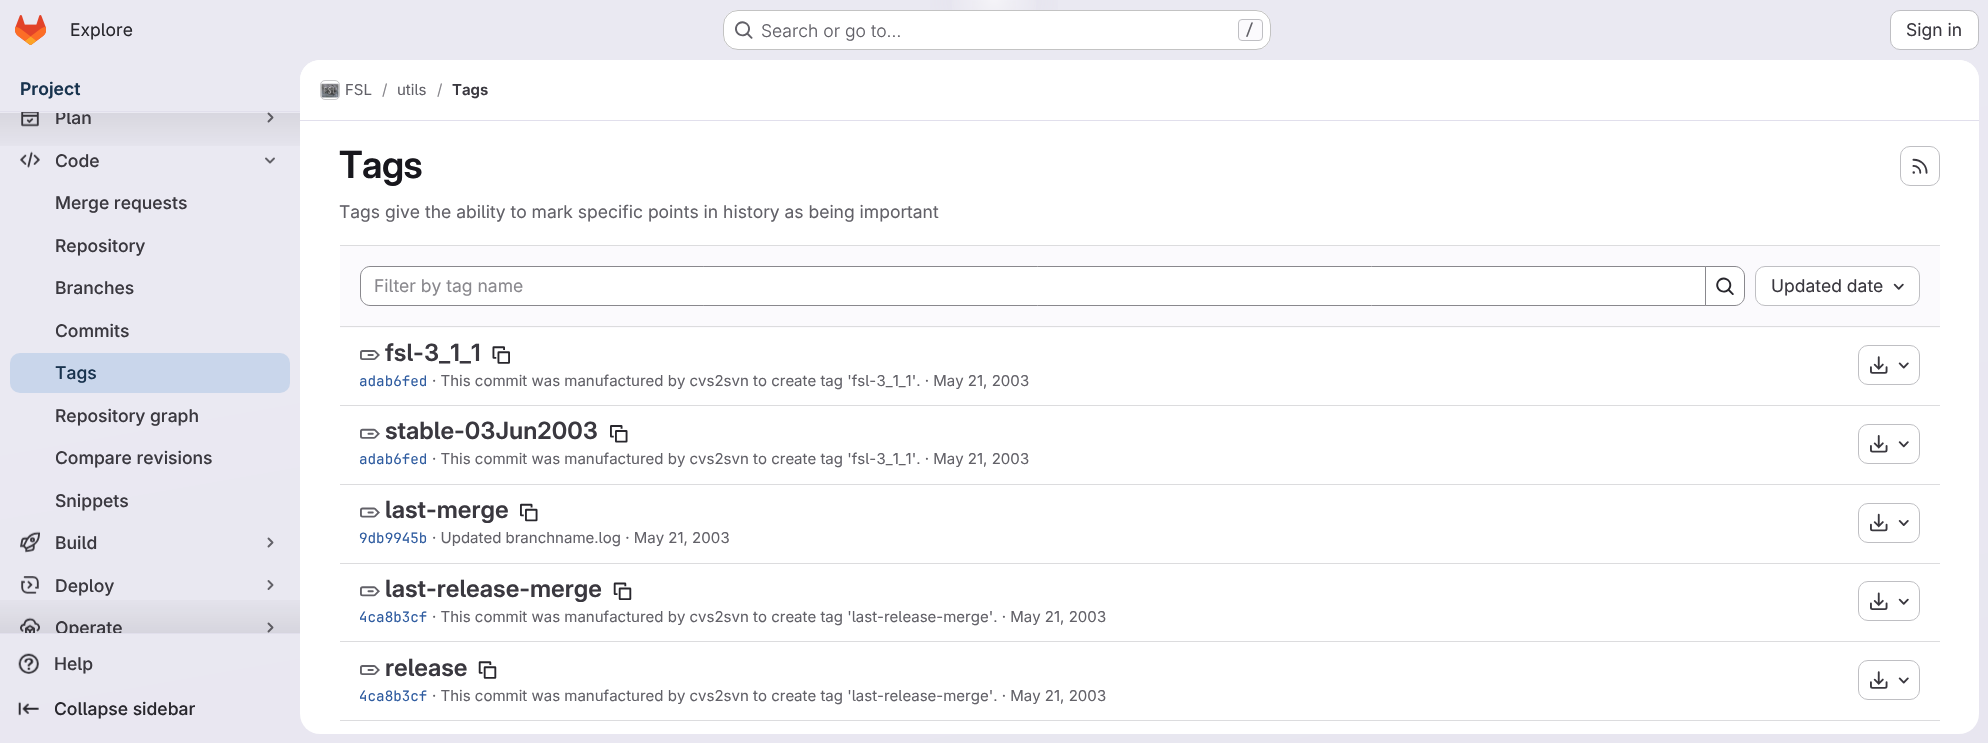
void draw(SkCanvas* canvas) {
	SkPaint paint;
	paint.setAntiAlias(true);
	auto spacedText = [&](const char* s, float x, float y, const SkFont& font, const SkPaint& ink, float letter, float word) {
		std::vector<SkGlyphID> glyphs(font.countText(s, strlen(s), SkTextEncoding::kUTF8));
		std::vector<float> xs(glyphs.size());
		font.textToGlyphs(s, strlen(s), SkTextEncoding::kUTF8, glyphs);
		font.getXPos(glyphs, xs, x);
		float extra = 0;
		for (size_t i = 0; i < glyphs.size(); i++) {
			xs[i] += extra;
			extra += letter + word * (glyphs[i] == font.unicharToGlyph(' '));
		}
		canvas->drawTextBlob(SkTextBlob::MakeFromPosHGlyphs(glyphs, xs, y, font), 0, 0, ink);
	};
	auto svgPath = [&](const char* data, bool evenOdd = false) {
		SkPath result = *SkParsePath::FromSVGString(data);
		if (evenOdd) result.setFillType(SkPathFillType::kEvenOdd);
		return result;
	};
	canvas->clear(0xffffffff);
	{
		const SkColor colors[] = {0xffe8e6f0, 0xffeae9f2};
		const float stops[] = {0, 0.7};
		const SkPoint ends[] = {{1088, 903}, {901, -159}};
		paint.setShader(SkGradientShader::MakeLinear(ends, colors, stops, 2, SkTileMode::kClamp));
		paint.setAlpha(255);
	}
	canvas->drawRect(SkRect::MakeXYWH(0, 0, 1988, 743), paint);
	{
		const SkColor colors[] = {0xffe4e2ed, 0x00e4e2ed};
		const float stops[] = {0, 0.09};
		SkMatrix m = SkMatrix::Translate(994, 0).preScale(994, 744);
		paint.setShader(SkGradientShader::MakeRadial({0, 0}, 1, colors, stops, 2, SkTileMode::kClamp, 0, &m));
		paint.setAlpha(255);
	}
	canvas->drawRect(SkRect::MakeXYWH(930, 0, 128, 48), paint);
	{
		const SkColor colors[] = {0xffe4e2ec, 0x00e4e2ec};
		const float stops[] = {0, 0.06};
		SkMatrix m = SkMatrix::Translate(994, 0).preScale(994, 744);
		paint.setShader(SkGradientShader::MakeRadial({0, 0}, 1, colors, stops, 2, SkTileMode::kClamp, 0, &m));
		paint.setAlpha(255);
	}
	canvas->drawRect(SkRect::MakeXYWH(972, 1, 44, 9), paint);
	{
		const SkColor colors[] = {0x99ffffff, 0x00ffffff};
		const float stops[] = {0, 0.04};
		paint.setShader(SkGradientShader::MakeRadial({994, 0}, 1242, colors, stops, 2, SkTileMode::kClamp));
		paint.setAlpha(255);
	}
	canvas->drawRect(SkRect::MakeXYWH(952, 0, 84, 10), paint);
	canvas->drawImageRect(SkImages::DeferredFromEncodedData(SkData::MakeFromFileName("img1.png")), SkRect::MakeXYWH(15, 15, 31, 30), SkSamplingOptions());
	SkFont f1(fontMgr->matchFamilyStyle("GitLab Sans", SkFontStyle::Normal()), 17.5);
	f1.setSubpixel(true);
	paint.setShader(nullptr);
	paint.setColor(0xff28272d);
	canvas->drawString("Explore", 70, 36, f1, paint);
	paint.setColor(0xffffffff);
	canvas->drawRoundRect(SkRect::MakeXYWH(723, 10, 548, 40), 15, 15, paint);
	paint.setStroke(true);
	paint.setStrokeWidth(1);
	paint.setColor(0x3d050506);
	canvas->drawRoundRect(SkRect::MakeXYWH(723.5, 10.5, 547, 39), 14.5, 14.5, paint);
	canvas->drawImageRect(SkImages::DeferredFromEncodedData(SkData::MakeFromFileName("img2.png")), SkRect::MakeXYWH(735, 21, 18, 18), SkSamplingOptions());
	SkFont f2(fontMgr->matchFamilyStyle("GitLab Sans", SkFontStyle(300, SkFontStyle::kNormal_Width, SkFontStyle::kUpright_Slant)), 17.5);
	f2.setSubpixel(true);
	paint.setStroke(false);
	paint.setColor(0xff626168);
	canvas->drawString("Search or go to…", 761, 37, f2, paint);
	paint.setColor(0xfffbfafd);
	canvas->drawRoundRect(SkRect::MakeXYWH(1238.5, 19.5, 24, 21), 3.5, 3.5, paint);
	paint.setStroke(true);
	paint.setColor(0xffbfbfc3);
	canvas->drawRoundRect(SkRect::MakeXYWH(1238.5, 19.5, 24, 21), 3.5, 3.5, paint);
	SkFont f3(fontMgr->matchFamilyStyle("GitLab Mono", SkFontStyle(500, SkFontStyle::kNormal_Width, SkFontStyle::kUpright_Slant)), 15);
	f3.setSubpixel(true);
	paint.setStroke(false);
	paint.setColor(0xff626168);
	canvas->drawString("/", 1245, 35, f3, paint);
	paint.setColor(0xffffffff);
	canvas->drawRoundRect(SkRect::MakeXYWH(1890.5, 10.5, 88, 39), 9.5, 9.5, paint);
	paint.setStroke(true);
	paint.setColor(0xffbfbfc3);
	canvas->drawRoundRect(SkRect::MakeXYWH(1890.5, 10.5, 88, 39), 9.5, 9.5, paint);
	paint.setStroke(false);
	paint.setColor(0xff3a383f);
	canvas->drawString("Sign in", 1906, 36, f1, paint);
	SkFont f4(fontMgr->matchFamilyStyle("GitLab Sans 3", SkFontStyle(600, SkFontStyle::kNormal_Width, SkFontStyle::kUpright_Slant)), 17.5);
	f4.setSubpixel(true);
	paint.setColor(0xff18334e);
	canvas->drawString("Project", 20, 95, f4, paint);
	paint.setColor(0xffe1dfec);
	canvas->drawRect(SkRect::MakeXYWH(0, 111, 300, 1), paint);
	canvas->drawRect(SkRect::MakeXYWH(0, 633, 300, 1), paint);
	canvas->drawImageRect(SkImages::DeferredFromEncodedData(SkData::MakeFromFileName("img3.png")), SkRect::MakeXYWH(21, 112, 18, 15), SkSamplingOptions());
	paint.setStroke(true);
	paint.setStrokeWidth(1.9);
	paint.setStrokeCap(SkPaint::kRound_Cap);
	paint.setStrokeJoin(SkPaint::kRound_Join);
	paint.setColor(0xff626168);
	canvas->drawPath(svgPath("M268.5 113.5L272.5 117.5L268.5 121.5"), paint);
	paint.setStroke(false);
	{
		const SkColor colors[] = {0x14050506, 0x00050506};
		const float stops[] = {0, 1};
		const SkPoint ends[] = {{150, 112}, {150, 158}};
		paint.setShader(SkGradientShader::MakeLinear(ends, colors, stops, 2, SkTileMode::kClamp));
		paint.setAlpha(255);
	}
	canvas->drawRect(SkRect::MakeXYWH(0, 113, 300, 33), paint);
	canvas->save();
	canvas->clipRect(SkRect::MakeXYWH(55, 113, 195, 18));
	SkFont f5(fontMgr->matchFamilyStyle("GitLab Sans", SkFontStyle(500, SkFontStyle::kNormal_Width, SkFontStyle::kUpright_Slant)), 17.5);
	f5.setSubpixel(true);
	paint.setShader(nullptr);
	paint.setColor(0xff3a383f);
	canvas->drawString("Plan", 55, 124, f5, paint);
	canvas->restore();
	canvas->drawImageRect(SkImages::DeferredFromEncodedData(SkData::MakeFromFileName("img4.png")), SkRect::MakeXYWH(20, 151, 20, 17), SkSamplingOptions());
	canvas->drawString("Code", 55, 167, f5, paint);
	paint.setStroke(true);
	paint.setColor(0xff626168);
	canvas->drawPath(svgPath("M274 158.5L270 162.5L266 158.5"), paint);
	paint.setStroke(false);
	paint.setColor(0xff3a383f);
	canvas->drawString("Merge requests", 55, 209, f5, paint);
	canvas->drawString("Repository", 55, 252, f5, paint);
	canvas->drawString("Branches", 55, 294, f5, paint);
	canvas->drawString("Commits", 55, 337, f5, paint);
	paint.setColor(0xffc9d6eb);
	canvas->drawRoundRect(SkRect::MakeXYWH(10, 353, 280, 40), 10, 10, paint);
	paint.setColor(0xff18334e);
	canvas->drawString("Tags", 55, 379, f5, paint);
	paint.setColor(0xff3a383f);
	canvas->drawString("Repository graph", 55, 422, f5, paint);
	canvas->drawString("Compare revisions", 55, 464, f5, paint);
	canvas->drawString("Snippets", 55, 507, f5, paint);
	canvas->drawImageRect(SkImages::DeferredFromEncodedData(SkData::MakeFromFileName("img5.png")), SkRect::MakeXYWH(20, 531, 20, 22), SkSamplingOptions());
	canvas->drawString("Build", 55, 549, f5, paint);
	paint.setStroke(true);
	paint.setColor(0xff626168);
	canvas->drawPath(svgPath("M268.5 538.5L272.5 542.5L268.5 546.5"), paint);
	canvas->drawImageRect(SkImages::DeferredFromEncodedData(SkData::MakeFromFileName("img6.png")), SkRect::MakeXYWH(21, 576, 18, 18), SkSamplingOptions());
	paint.setStroke(false);
	paint.setColor(0xff3a383f);
	canvas->drawString("Deploy", 55, 592, f5, paint);
	paint.setStroke(true);
	paint.setColor(0xff626168);
	canvas->drawPath(svgPath("M268.5 581L272.5 585L268.5 589"), paint);
	canvas->drawImageRect(SkImages::DeferredFromEncodedData(SkData::MakeFromFileName("img7.png")), SkRect::MakeXYWH(20, 617, 20, 16), SkSamplingOptions());
	canvas->save();
	canvas->clipRect(SkRect::MakeXYWH(55, 615, 195, 18));
	paint.setStroke(false);
	paint.setColor(0xff3a383f);
	canvas->drawString("Operate", 55, 634, f5, paint);
	canvas->restore();
	paint.setStroke(true);
	paint.setColor(0xff626168);
	canvas->drawPath(svgPath("M268.5 623.5L272.5 627.5L268.5 631.5"), paint);
	paint.setStroke(false);
	{
		const SkColor colors[] = {0x00050506, 0x14050506};
		const float stops[] = {0, 1};
		const SkPoint ends[] = {{150, 588}, {150, 633}};
		paint.setShader(SkGradientShader::MakeLinear(ends, colors, stops, 2, SkTileMode::kClamp));
		paint.setAlpha(255);
	}
	canvas->drawRect(SkRect::MakeXYWH(0, 600, 300, 33), paint);
	canvas->drawImageRect(SkImages::DeferredFromEncodedData(SkData::MakeFromFileName("img8.png")), SkRect::MakeXYWH(18, 653, 21, 21), SkSamplingOptions());
	paint.setShader(nullptr);
	paint.setColor(0xff3a383f);
	canvas->drawString("Help", 54, 670, f5, paint);
	canvas->drawImageRect(SkImages::DeferredFromEncodedData(SkData::MakeFromFileName("img9.png")), SkRect::MakeXYWH(18, 701, 21, 15), SkSamplingOptions());
	paint.setColor(0xff28272d);
	canvas->drawString("Collapse sidebar", 54, 715, f5, paint);
	paint.setColor(0xffffffff);
	canvas->drawRoundRect(SkRect::MakeXYWH(300, 60, 1679, 674), 20, 20, paint);
	canvas->drawPath(svgPath("M320 60H1959C1970 60 1979 69 1979 80V121H300V80C300 69 309 60 320 60Z"), paint);
	paint.setColor(0xffe1dfec);
	canvas->drawRect(SkRect::MakeXYWH(300, 120, 1679, 1), paint);
	paint.setStroke(true);
	paint.setStrokeWidth(1);
	paint.setStrokeCap(SkPaint::kButt_Cap);
	paint.setStrokeJoin(SkPaint::kMiter_Join);
	paint.setColor(0xffdcdcde);
	canvas->drawRoundRect(SkRect::MakeXYWH(320.5, 80.5, 19, 19), 4.5, 4.5, paint);
	canvas->drawImageRect(SkImages::DeferredFromEncodedData(SkData::MakeFromFileName("img10.png")), SkRect::MakeXYWH(321, 83, 18, 15), SkSamplingOptions());
	paint.setColor(0x14050506);
	canvas->drawRoundRect(SkRect::MakeXYWH(320.5, 80.5, 19, 19), 4.5, 4.5, paint);
	SkFont f6(fontMgr->matchFamilyStyle("GitLab Sans", SkFontStyle::Normal()), 15);
	f6.setSubpixel(true);
	paint.setStroke(false);
	paint.setColor(0xff626168);
	canvas->drawString("FSL", 345, 95, f6, paint);
	paint.setColor(0xff89888d);
	canvas->drawString("/", 382, 95, f6, paint);
	paint.setColor(0xff626168);
	canvas->drawString("utils", 397, 95, f6, paint);
	paint.setColor(0xff89888d);
	canvas->drawString("/", 437, 95, f6, paint);
	SkFont f7(fontMgr->matchFamilyStyle("GitLab Sans 3", SkFontStyle(600, SkFontStyle::kNormal_Width, SkFontStyle::kUpright_Slant)), 15);
	f7.setSubpixel(true);
	paint.setColor(0xff3a383f);
	canvas->drawString("Tags", 452, 95, f7, paint);
	SkFont f8(fontMgr->matchFamilyStyle("GitLab Sans", SkFontStyle(600, SkFontStyle::kNormal_Width, SkFontStyle::kUpright_Slant)), 37.5);
	f8.setSubpixel(true);
	paint.setColor(0xff18171d);
	spacedText("Tags", 339, 178, f8, paint, -0.5, 0);
	paint.setStroke(true);
	paint.setColor(0xffbfbfc3);
	canvas->drawRoundRect(SkRect::MakeXYWH(1900.5, 146.5, 39, 39), 9.5, 9.5, paint);
	canvas->drawImageRect(SkImages::DeferredFromEncodedData(SkData::MakeFromFileName("img11.png")), SkRect::MakeXYWH(1912, 158, 16, 16), SkSamplingOptions());
	paint.setStroke(false);
	paint.setColor(0xff626168);
	canvas->drawString("Tags give the ability to mark specific points in history as being important", 339, 218, f1, paint);
	paint.setColor(0xfffbfafd);
	canvas->drawRect(SkRect::MakeXYWH(340, 246, 1600, 82), paint);
	paint.setColor(0xffdcdcde);
	canvas->drawRect(SkRect::MakeXYWH(340, 245, 1600, 1), paint);
	canvas->drawRect(SkRect::MakeXYWH(340, 326, 1600, 1), paint);
	paint.setColor(0xffffffff);
	canvas->drawPath(svgPath("M370 266.5H1705.5V305.5H370C365 305.5 360.5 301 360.5 296V276C360.5 271 365 266.5 370 266.5Z"), paint);
	paint.setStroke(true);
	paint.setColor(0xff89888d);
	canvas->drawPath(svgPath("M370 266.5H1705.5V305.5H370C365 305.5 360.5 301 360.5 296V276C360.5 271 365 266.5 370 266.5Z"), paint);
	paint.setStroke(false);
	canvas->drawString("Filter by tag name", 374, 292, f1, paint);
	paint.setColor(0xffffffff);
	canvas->drawPath(svgPath("M1705.5 266.5H1735C1740 266.5 1744.5 271 1744.5 276V296C1744.5 301 1740 305.5 1735 305.5H1705.5Z"), paint);
	paint.setStroke(true);
	paint.setColor(0xff89888d);
	canvas->drawPath(svgPath("M1705.5 266.5H1735C1740 266.5 1744.5 271 1744.5 276V296C1744.5 301 1740 305.5 1735 305.5H1705.5Z"), paint);
	canvas->drawImageRect(SkImages::DeferredFromEncodedData(SkData::MakeFromFileName("img12.png")), SkRect::MakeXYWH(1716, 277, 18, 18), SkSamplingOptions());
	paint.setStroke(false);
	paint.setColor(0xffffffff);
	canvas->drawRoundRect(SkRect::MakeXYWH(1755.5, 266.5, 164, 39), 9.5, 9.5, paint);
	paint.setStroke(true);
	paint.setColor(0xffbfbfc3);
	canvas->drawRoundRect(SkRect::MakeXYWH(1755.5, 266.5, 164, 39), 9.5, 9.5, paint);
	paint.setStroke(false);
	paint.setColor(0xff3a383f);
	canvas->drawString("Updated date", 1771, 292, f1, paint);
	canvas->drawImageRect(SkImages::DeferredFromEncodedData(SkData::MakeFromFileName("img13.png")), SkRect::MakeXYWH(1893, 283, 11, 7), SkSamplingOptions());
	paint.setColor(0xffdcdcde);
	canvas->drawRect(SkRect::MakeXYWH(340, 405, 1600, 1), paint);
	canvas->drawImageRect(SkImages::DeferredFromEncodedData(SkData::MakeFromFileName("img14.png")), SkRect::MakeXYWH(360, 350, 20, 10), SkSamplingOptions());
	SkFont f9(fontMgr->matchFamilyStyle("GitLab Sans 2", SkFontStyle(600, SkFontStyle::kNormal_Width, SkFontStyle::kUpright_Slant)), 23.75);
	f9.setSubpixel(true);
	paint.setColor(0xff3a383f);
	canvas->drawString("fsl-3_1_1", 385, 361, f9, paint);
	canvas->drawImageRect(SkImages::DeferredFromEncodedData(SkData::MakeFromFileName("img15.png")), SkRect::MakeXYWH(492, 346, 18, 18), SkSamplingOptions());
	SkFont f10(fontMgr->matchFamilyStyle("GitLab Mono", SkFontStyle::Normal()), 14.25);
	f10.setSubpixel(true);
	paint.setColor(0xff2f5ca0);
	canvas->drawString("adab6fed", 359, 386, f10, paint);
	paint.setColor(0xff626168);
	canvas->drawString("· This commit was manufactured by cvs2svn to create tag 'fsl-3_1_1'. · May 21, 2003", 432, 386, f6, paint);
	paint.setStroke(true);
	paint.setColor(0xffbfbfc3);
	canvas->drawRoundRect(SkRect::MakeXYWH(1858.5, 345.5, 61, 39), 9.5, 9.5, paint);
	canvas->drawImageRect(SkImages::DeferredFromEncodedData(SkData::MakeFromFileName("img16.png")), SkRect::MakeXYWH(1870, 356, 18, 18), SkSamplingOptions());
	canvas->drawImageRect(SkImages::DeferredFromEncodedData(SkData::MakeFromFileName("img17.png")), SkRect::MakeXYWH(1898, 362, 11, 7), SkSamplingOptions());
	paint.setStroke(false);
	paint.setColor(0xffdcdcde);
	canvas->drawRect(SkRect::MakeXYWH(340, 484, 1600, 1), paint);
	canvas->drawImageRect(SkImages::DeferredFromEncodedData(SkData::MakeFromFileName("img18.png")), SkRect::MakeXYWH(360, 428, 20, 11), SkSamplingOptions());
	paint.setColor(0xff3a383f);
	canvas->drawString("stable-03Jun2003", 385, 439, f9, paint);
	canvas->drawImageRect(SkImages::DeferredFromEncodedData(SkData::MakeFromFileName("img19.png")), SkRect::MakeXYWH(610, 425, 18, 18), SkSamplingOptions());
	paint.setColor(0xff2f5ca0);
	canvas->drawString("adab6fed", 359, 464, f10, paint);
	paint.setColor(0xff626168);
	canvas->drawString("· This commit was manufactured by cvs2svn to create tag 'fsl-3_1_1'. · May 21, 2003", 432, 464, f6, paint);
	paint.setStroke(true);
	paint.setColor(0xffbfbfc3);
	canvas->drawRoundRect(SkRect::MakeXYWH(1858.5, 424.5, 61, 39), 9.5, 9.5, paint);
	canvas->drawImageRect(SkImages::DeferredFromEncodedData(SkData::MakeFromFileName("img20.png")), SkRect::MakeXYWH(1870, 435, 18, 18), SkSamplingOptions());
	canvas->drawImageRect(SkImages::DeferredFromEncodedData(SkData::MakeFromFileName("img21.png")), SkRect::MakeXYWH(1898, 441, 11, 7), SkSamplingOptions());
	paint.setStroke(false);
	paint.setColor(0xffdcdcde);
	canvas->drawRect(SkRect::MakeXYWH(340, 563, 1600, 1), paint);
	canvas->drawImageRect(SkImages::DeferredFromEncodedData(SkData::MakeFromFileName("img22.png")), SkRect::MakeXYWH(360, 507, 20, 11), SkSamplingOptions());
	paint.setColor(0xff3a383f);
	canvas->drawString("last-merge", 385, 518, f9, paint);
	canvas->drawImageRect(SkImages::DeferredFromEncodedData(SkData::MakeFromFileName("img23.png")), SkRect::MakeXYWH(520, 503, 18, 19), SkSamplingOptions());
	paint.setColor(0xff2f5ca0);
	canvas->drawString("9db9945b", 359, 543, f10, paint);
	paint.setColor(0xff626168);
	canvas->drawString("· Updated branchname.log · May 21, 2003", 432, 543, f6, paint);
	paint.setStroke(true);
	paint.setColor(0xffbfbfc3);
	canvas->drawRoundRect(SkRect::MakeXYWH(1858.5, 503.5, 61, 39), 9.5, 9.5, paint);
	canvas->drawImageRect(SkImages::DeferredFromEncodedData(SkData::MakeFromFileName("img24.png")), SkRect::MakeXYWH(1870, 513, 18, 19), SkSamplingOptions());
	canvas->drawImageRect(SkImages::DeferredFromEncodedData(SkData::MakeFromFileName("img25.png")), SkRect::MakeXYWH(1898, 520, 11, 6), SkSamplingOptions());
	paint.setStroke(false);
	paint.setColor(0xffdcdcde);
	canvas->drawRect(SkRect::MakeXYWH(340, 641, 1600, 1), paint);
	canvas->drawImageRect(SkImages::DeferredFromEncodedData(SkData::MakeFromFileName("img26.png")), SkRect::MakeXYWH(360, 586, 20, 11), SkSamplingOptions());
	paint.setColor(0xff3a383f);
	canvas->drawString("last-release-merge", 385, 597, f9, paint);
	canvas->drawImageRect(SkImages::DeferredFromEncodedData(SkData::MakeFromFileName("img27.png")), SkRect::MakeXYWH(613, 582, 19, 18), SkSamplingOptions());
	paint.setColor(0xff2f5ca0);
	canvas->drawString("4ca8b3cf", 359, 622, f10, paint);
	paint.setColor(0xff626168);
	canvas->drawString("· This commit was manufactured by cvs2svn to create tag 'last-release-merge'. · May 21, 2003", 432, 622, f6, paint);
	paint.setStroke(true);
	paint.setColor(0xffbfbfc3);
	canvas->drawRoundRect(SkRect::MakeXYWH(1858.5, 581.5, 61, 39), 9.5, 9.5, paint);
	canvas->drawImageRect(SkImages::DeferredFromEncodedData(SkData::MakeFromFileName("img28.png")), SkRect::MakeXYWH(1870, 592, 18, 18), SkSamplingOptions());
	canvas->drawImageRect(SkImages::DeferredFromEncodedData(SkData::MakeFromFileName("img13.png")), SkRect::MakeXYWH(1898, 598, 11, 7), SkSamplingOptions());
	paint.setStroke(false);
	paint.setColor(0xffdcdcde);
	canvas->drawRect(SkRect::MakeXYWH(340, 720, 1600, 1), paint);
	canvas->drawImageRect(SkImages::DeferredFromEncodedData(SkData::MakeFromFileName("img29.png")), SkRect::MakeXYWH(360, 665, 20, 10), SkSamplingOptions());
	paint.setColor(0xff3a383f);
	canvas->drawString("release", 385, 676, f9, paint);
	canvas->drawImageRect(SkImages::DeferredFromEncodedData(SkData::MakeFromFileName("img30.png")), SkRect::MakeXYWH(478, 661, 19, 18), SkSamplingOptions());
	paint.setColor(0xff2f5ca0);
	canvas->drawString("4ca8b3cf", 359, 701, f10, paint);
	paint.setColor(0xff626168);
	canvas->drawString("· This commit was manufactured by cvs2svn to create tag 'last-release-merge'. · May 21, 2003", 432, 701, f6, paint);
	paint.setStroke(true);
	paint.setColor(0xffbfbfc3);
	canvas->drawRoundRect(SkRect::MakeXYWH(1858.5, 660.5, 61, 39), 9.5, 9.5, paint);
	canvas->drawImageRect(SkImages::DeferredFromEncodedData(SkData::MakeFromFileName("img16.png")), SkRect::MakeXYWH(1870, 671, 18, 18), SkSamplingOptions());
	canvas->drawImageRect(SkImages::DeferredFromEncodedData(SkData::MakeFromFileName("img17.png")), SkRect::MakeXYWH(1898, 677, 11, 7), SkSamplingOptions());
}
